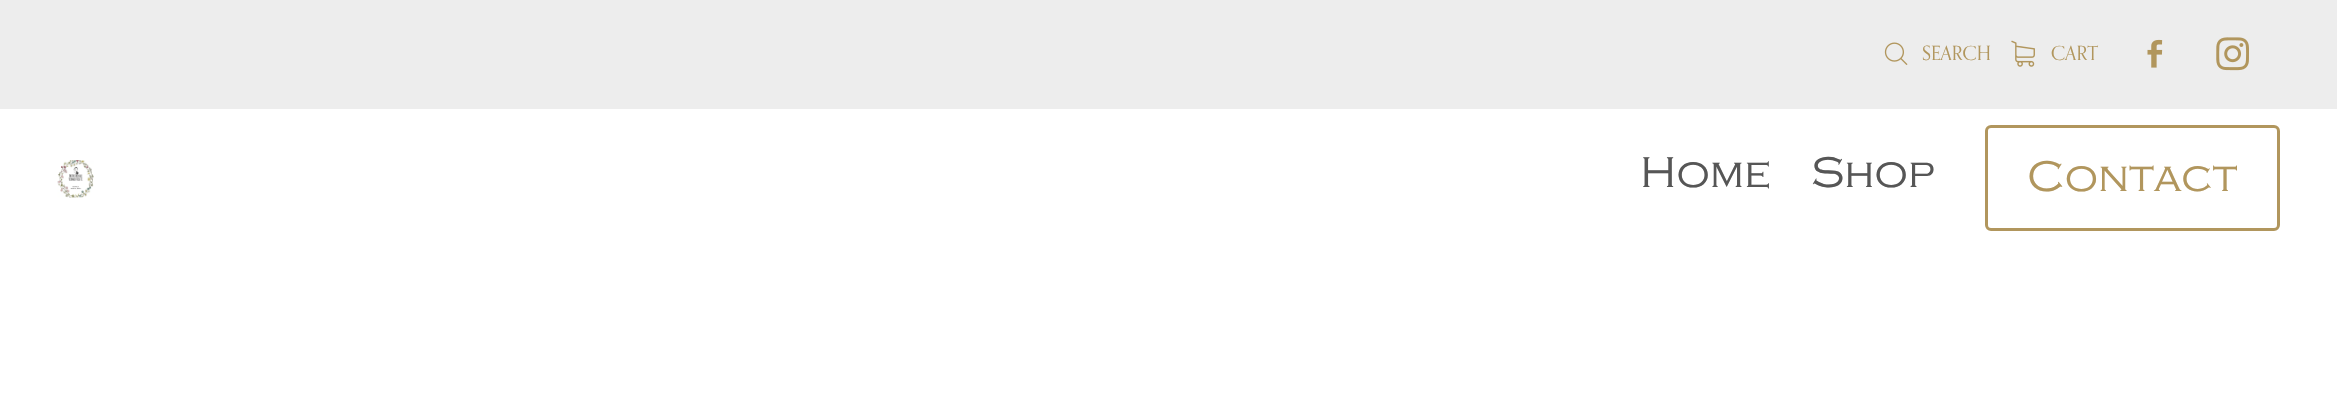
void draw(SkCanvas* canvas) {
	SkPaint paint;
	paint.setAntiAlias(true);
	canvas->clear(0xffffffff);
	paint.setColor(0xffededed);
	canvas->drawRect(SkRect::MakeXYWH(0, 0, 2337, 109), paint);
	canvas->drawImageRect(SkImages::DeferredFromEncodedData(SkData::MakeFromFileName("img1.png")), SkRect::MakeXYWH(1884, 42, 24, 23), SkSamplingOptions());
	SkFont f1(fontMgr->matchFamilyStyle("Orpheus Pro", SkFontStyle::Normal()), 19.5);
	f1.setSubpixel(true);
	paint.setColor(0xffb1965d);
	canvas->drawString("SEARCH", 1922, 60, f1, paint);
	canvas->drawImageRect(SkImages::DeferredFromEncodedData(SkData::MakeFromFileName("img2.png")), SkRect::MakeXYWH(2011, 40, 24, 27), SkSamplingOptions());
	canvas->drawString("CART", 2051, 60, f1, paint);
	canvas->drawImageRect(SkImages::DeferredFromEncodedData(SkData::MakeFromFileName("img3.png")), SkRect::MakeXYWH(2147, 39, 16, 29), SkSamplingOptions());
	canvas->drawImageRect(SkImages::DeferredFromEncodedData(SkData::MakeFromFileName("img4.png")), SkRect::MakeXYWH(2216, 37, 33, 34), SkSamplingOptions());
	canvas->drawImageRect(SkImages::DeferredFromEncodedData(SkData::MakeFromFileName("img5.png")), SkRect::MakeXYWH(57, 160, 37, 38), SkSamplingOptions());
	SkFont f2(fontMgr->matchFamilyStyle("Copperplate", SkFontStyle(300, SkFontStyle::kNormal_Width, SkFontStyle::kUpright_Slant)), 44.5);
	f2.setSubpixel(true);
	paint.setColor(0xff565656);
	canvas->drawString("Home", 1640, 187, f2, paint);
	canvas->drawString("Shop", 1811, 187, f2, paint);
	paint.setStroke(true);
	paint.setStrokeWidth(3);
	paint.setColor(0xffb1965d);
	canvas->drawRoundRect(SkRect::MakeXYWH(1986.5, 126.5, 292, 103), 4.5, 4.5, paint);
	paint.setStroke(false);
	canvas->drawString("Contact", 2027, 191, f2, paint);
}
